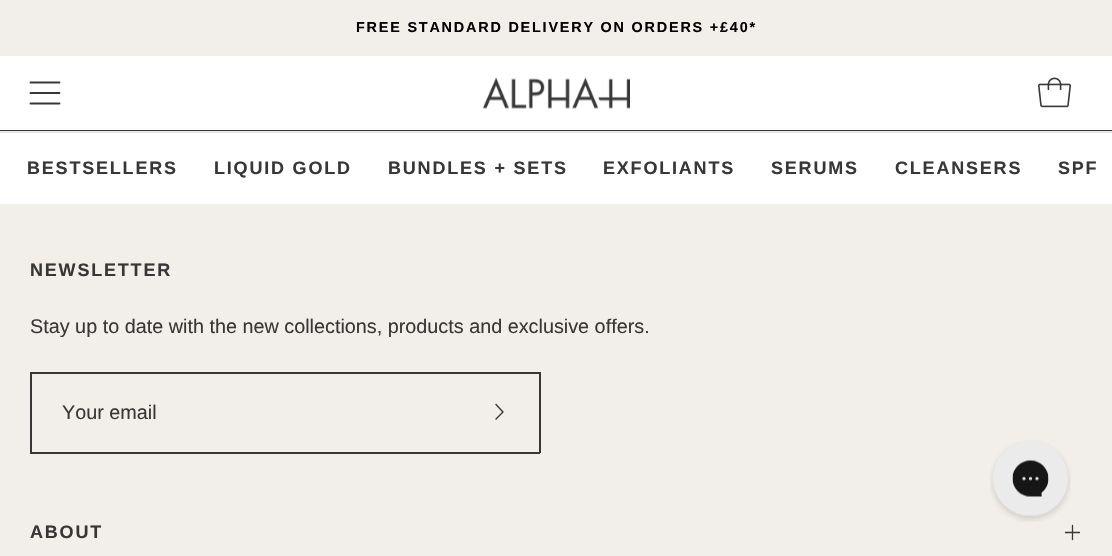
void draw(SkCanvas* canvas) {
	SkPaint paint;
	paint.setAntiAlias(true);
	auto spacedText = [&](const char* s, float x, float y, const SkFont& font, const SkPaint& ink, float letter, float word) {
		std::vector<SkGlyphID> glyphs(font.countText(s, strlen(s), SkTextEncoding::kUTF8));
		std::vector<float> xs(glyphs.size());
		font.textToGlyphs(s, strlen(s), SkTextEncoding::kUTF8, glyphs);
		font.getXPos(glyphs, xs, x);
		float extra = 0;
		for (size_t i = 0; i < glyphs.size(); i++) {
			xs[i] += extra;
			extra += letter + word * (glyphs[i] == font.unicharToGlyph(' '));
		}
		canvas->drawTextBlob(SkTextBlob::MakeFromPosHGlyphs(glyphs, xs, y, font), 0, 0, ink);
	};
	auto svgPath = [&](const char* data, bool evenOdd = false) {
		SkPath result = *SkParsePath::FromSVGString(data);
		if (evenOdd) result.setFillType(SkPathFillType::kEvenOdd);
		return result;
	};
	canvas->clear(0xffffffff);
	paint.setColor(0xfff2eee9);
	canvas->drawRect(SkRect::MakeXYWH(0, 0, 1112, 56), paint);
	SkFont f1(fontMgr->matchFamilyStyle("Arimo", SkFontStyle::Bold()), 14.4);
	f1.setSubpixel(true);
	paint.setColor(0xff000000);
	spacedText("FREE STANDARD DELIVERY ON ORDERS +£40*", 356, 32, f1, paint, 1.8, 0);
	paint.setStroke(true);
	paint.setStrokeWidth(1.8);
	paint.setStrokeCap(SkPaint::kRound_Cap);
	paint.setStrokeJoin(SkPaint::kRound_Join);
	paint.setColor(0xff373737);
	canvas->drawPath(svgPath("M30.5 93H59.5M30.5 82.5H59.5M30.5 103.5H59.5"), paint);
	canvas->drawImageRect(SkImages::DeferredFromEncodedData(SkData::MakeFromFileName("img1.png")), SkRect::MakeXYWH(483, 77, 147, 32), SkSamplingOptions());
	canvas->drawImageRect(SkImages::DeferredFromEncodedData(SkData::MakeFromFileName("img2.png")), SkRect::MakeXYWH(1038, 77, 33, 31), SkSamplingOptions());
	paint.setStroke(false);
	canvas->drawRect(SkRect::MakeXYWH(0, 130, 1112, 1), paint);
	paint.setColor(0xffe6e6e6);
	canvas->drawRect(SkRect::MakeXYWH(0, 131, 1112, 2), paint);
	SkFont f2(fontMgr->matchFamilyStyle("Arimo", SkFontStyle::Bold()), 18);
	f2.setSubpixel(true);
	paint.setColor(0xff373737);
	spacedText("BESTSELLERS", 27, 174, f2, paint, 1.8, 0);
	spacedText("LIQUID GOLD", 214, 174, f2, paint, 1.8, 0);
	spacedText("BUNDLES + SETS", 388, 174, f2, paint, 1.8, 0);
	spacedText("EXFOLIANTS", 603, 174, f2, paint, 1.8, 0);
	spacedText("SERUMS", 771, 174, f2, paint, 1.8, 0);
	spacedText("CLEANSERS", 895, 174, f2, paint, 1.8, 0);
	spacedText("SPF", 1058, 174, f2, paint, 1.8, 0);
	paint.setColor(0xfff2eee9);
	canvas->drawRect(SkRect::MakeXYWH(0, 204, 1112, 352), paint);
	paint.setColor(0xff373737);
	spacedText("NEWSLETTER", 30, 276, f2, paint, 1.8, 0);
	SkFont f3(fontMgr->matchFamilyStyle("Arimo", SkFontStyle::Normal()), 19.8);
	f3.setSubpixel(true);
	canvas->drawString("Stay up to date with the new collections, products and exclusive offers.", 30, 333, f3, paint);
	canvas->drawRect(SkRect::MakeXYWH(30, 372, 510, 2), paint);
	canvas->drawRect(SkRect::MakeXYWH(30, 452, 429, 2), paint);
	canvas->drawRect(SkRect::MakeXYWH(30, 372, 2, 81), paint);
	canvas->drawString("Your email", 62, 419, f3, paint);
	canvas->drawRect(SkRect::MakeXYWH(539, 372, 2, 81), paint);
	canvas->drawRect(SkRect::MakeXYWH(459, 452, 81, 2), paint);
	paint.setStroke(true);
	paint.setStrokeWidth(1.4);
	canvas->drawPath(svgPath("M496 404.5L503 412L496 419"), paint);
	paint.setStroke(false);
	spacedText("ABOUT", 30, 538, f2, paint, 1.8, 0);
	paint.setStroke(true);
	paint.setStrokeWidth(1.3);
	canvas->drawPath(svgPath("M1065.5 532.5H1079.5M1072.5 525.5V539.5M1065.5 532.5H1079.5"), paint);
	canvas->drawImageRect(SkImages::DeferredFromEncodedData(SkData::MakeFromFileName("img3.png")), SkRect::MakeXYWH(990, 440, 81, 82), SkSamplingOptions());
}
